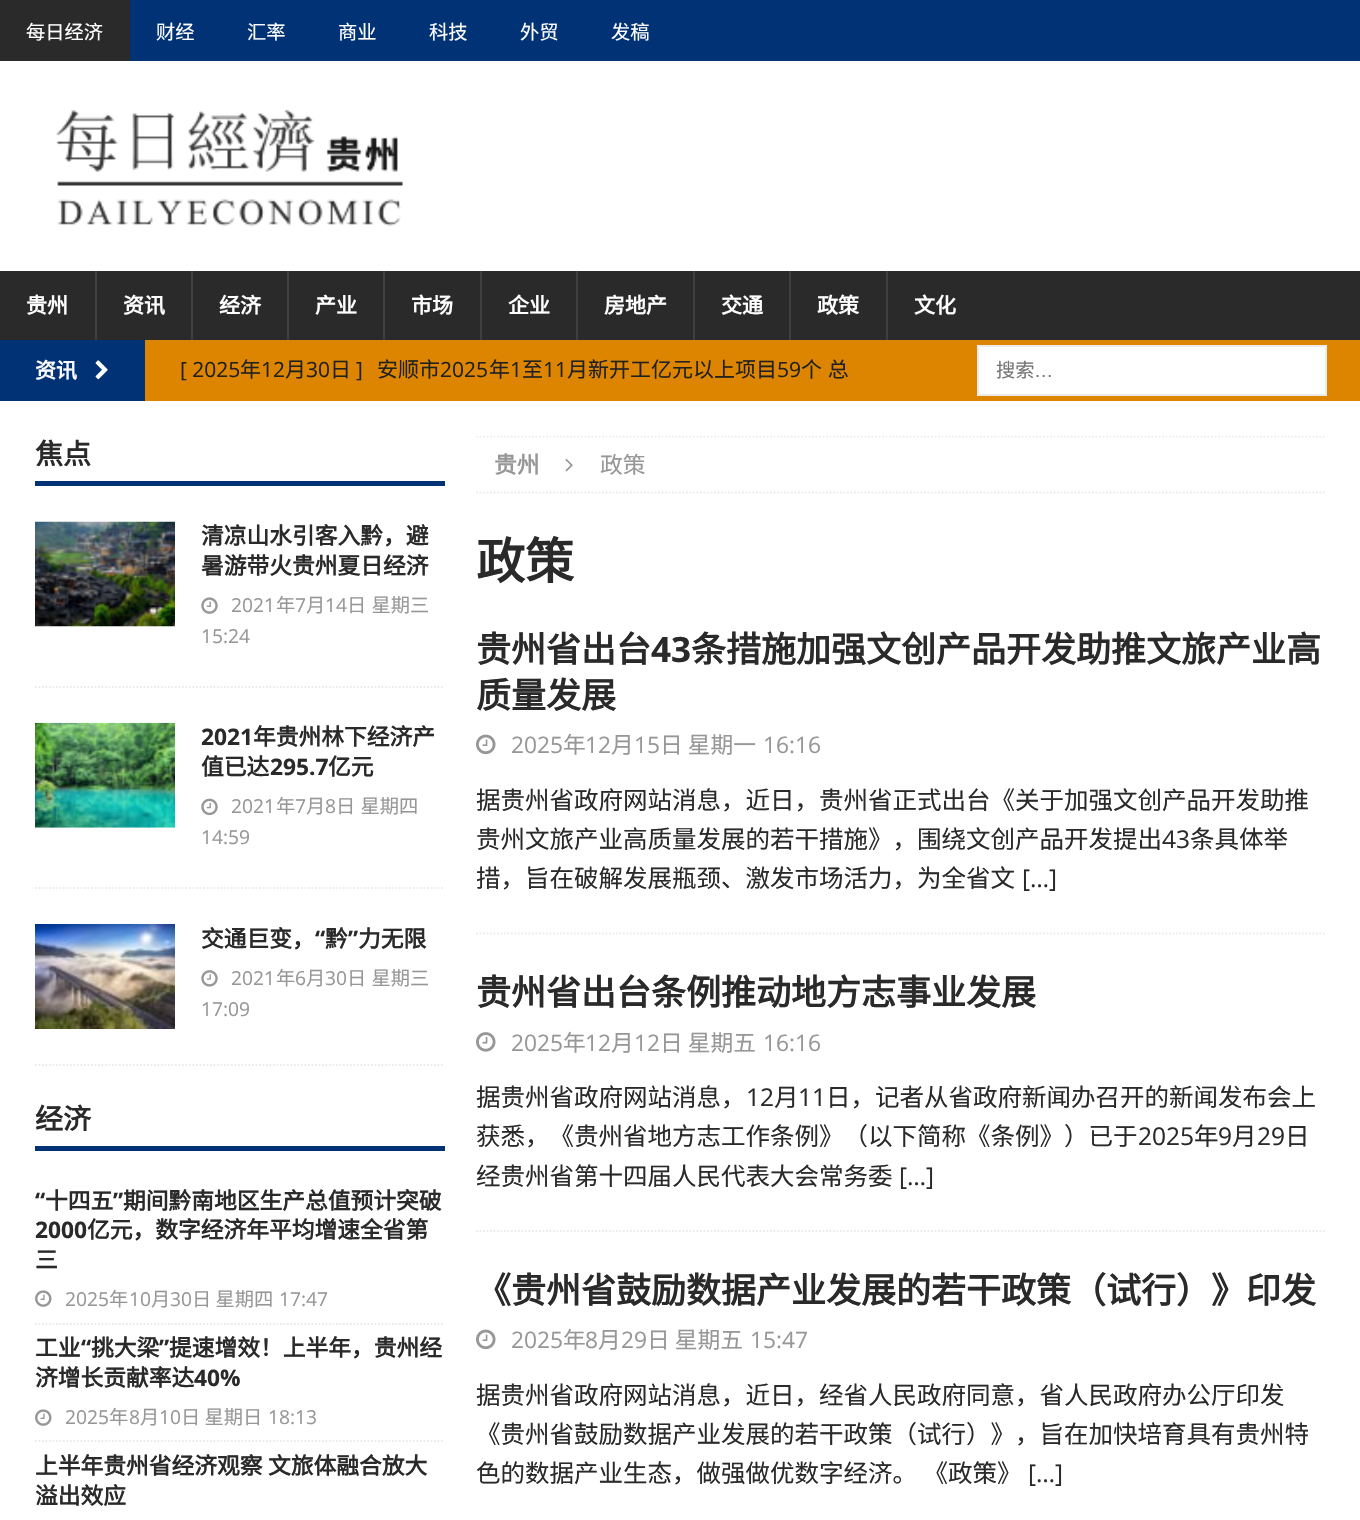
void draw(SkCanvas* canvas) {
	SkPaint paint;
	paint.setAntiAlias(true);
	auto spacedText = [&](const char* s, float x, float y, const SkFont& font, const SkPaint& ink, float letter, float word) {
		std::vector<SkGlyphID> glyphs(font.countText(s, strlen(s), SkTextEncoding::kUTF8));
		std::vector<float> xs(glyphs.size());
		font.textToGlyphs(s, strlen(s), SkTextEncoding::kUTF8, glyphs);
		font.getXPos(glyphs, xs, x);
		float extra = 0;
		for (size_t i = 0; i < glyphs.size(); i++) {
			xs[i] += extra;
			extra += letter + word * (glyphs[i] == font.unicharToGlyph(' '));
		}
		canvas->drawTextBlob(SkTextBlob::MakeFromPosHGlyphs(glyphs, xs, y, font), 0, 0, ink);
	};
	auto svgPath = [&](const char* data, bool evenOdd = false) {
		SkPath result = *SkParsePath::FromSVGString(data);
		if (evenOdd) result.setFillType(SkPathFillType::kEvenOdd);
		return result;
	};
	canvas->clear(0xffffffff);
	paint.setColor(0xff003275);
	canvas->drawRect(SkRect::MakeXYWH(130, 0, 1230, 61), paint);
	paint.setColor(0xff2a2a2a);
	canvas->drawRect(SkRect::MakeXYWH(0, 0, 130, 61), paint);
	SkFont f1(fontMgr->matchFamilyStyle("Noto Sans CJK SC", SkFontStyle::Normal()), 19.25);
	f1.setSubpixel(true);
	paint.setColor(0xffffffff);
	canvas->drawString("每日经济", 26, 39, f1, paint);
	canvas->drawString("财经", 156, 39, f1, paint);
	canvas->drawString("汇率", 247, 39, f1, paint);
	canvas->drawString("商业", 338, 39, f1, paint);
	canvas->drawString("科技", 429, 39, f1, paint);
	canvas->drawString("外贸", 520, 39, f1, paint);
	canvas->drawString("发稿", 611, 39, f1, paint);
	canvas->drawImageRect(SkImages::DeferredFromEncodedData(SkData::MakeFromFileName("img1.png")), SkRect::MakeXYWH(55, 109, 348, 118), SkSamplingOptions());
	paint.setColor(0xff2a2a2a);
	canvas->drawRect(SkRect::MakeXYWH(0, 271, 1360, 69), paint);
	SkFont f2(fontMgr->matchFamilyStyle("Noto Sans CJK SC", SkFontStyle::Bold()), 21);
	f2.setSubpixel(true);
	paint.setColor(0xffffffff);
	canvas->drawString("贵州", 26, 313, f2, paint);
	paint.setColor(0xff3f3f3f);
	canvas->drawRect(SkRect::MakeXYWH(95, 271, 2, 69), paint);
	paint.setColor(0xffffffff);
	canvas->drawString("资讯", 123, 313, f2, paint);
	paint.setColor(0xff3f3f3f);
	canvas->drawRect(SkRect::MakeXYWH(191, 271, 2, 69), paint);
	paint.setColor(0xffffffff);
	canvas->drawString("经济", 219, 313, f2, paint);
	paint.setColor(0xff3f3f3f);
	canvas->drawRect(SkRect::MakeXYWH(287, 271, 2, 69), paint);
	paint.setColor(0xffffffff);
	canvas->drawString("产业", 315, 313, f2, paint);
	paint.setColor(0xff3f3f3f);
	canvas->drawRect(SkRect::MakeXYWH(383, 271, 2, 69), paint);
	paint.setColor(0xffffffff);
	canvas->drawString("市场", 411, 313, f2, paint);
	paint.setColor(0xff3f3f3f);
	canvas->drawRect(SkRect::MakeXYWH(480, 271, 2, 69), paint);
	paint.setColor(0xffffffff);
	canvas->drawString("企业", 508, 313, f2, paint);
	paint.setColor(0xff3f3f3f);
	canvas->drawRect(SkRect::MakeXYWH(576, 271, 2, 69), paint);
	paint.setColor(0xffffffff);
	canvas->drawString("房地产", 604, 313, f2, paint);
	paint.setColor(0xff3f3f3f);
	canvas->drawRect(SkRect::MakeXYWH(693, 271, 2, 69), paint);
	paint.setColor(0xffffffff);
	canvas->drawString("交通", 721, 313, f2, paint);
	paint.setColor(0xff3f3f3f);
	canvas->drawRect(SkRect::MakeXYWH(789, 271, 2, 69), paint);
	paint.setColor(0xffffffff);
	canvas->drawString("政策", 817, 313, f2, paint);
	paint.setColor(0xff3f3f3f);
	canvas->drawRect(SkRect::MakeXYWH(886, 271, 2, 69), paint);
	paint.setColor(0xffffffff);
	canvas->drawString("文化", 914, 313, f2, paint);
	paint.setColor(0xffdd8500);
	canvas->drawRect(SkRect::MakeXYWH(145, 340, 1215, 61), paint);
	paint.setColor(0xff003275);
	canvas->drawRect(SkRect::MakeXYWH(0, 340, 145, 61), paint);
	paint.setColor(0xffffffff);
	canvas->drawString("资讯", 35, 378, f2, paint);
	canvas->drawImageRect(SkImages::DeferredFromEncodedData(SkData::MakeFromFileName("img2.png")), SkRect::MakeXYWH(95, 360, 13, 20), SkSamplingOptions());
	SkFont f3(fontMgr->matchFamilyStyle("Open Sans", SkFontStyle::Normal()), 21);
	f3.setSubpixel(true);
	paint.setColor(0xff212121);
	canvas->drawString("[ 2025", 180, 377, f3, paint);
	SkFont f4(fontMgr->matchFamilyStyle("Noto Sans CJK SC", SkFontStyle::Normal()), 21);
	f4.setSubpixel(true);
	canvas->drawString("年", 240, 377, f4, paint);
	canvas->drawString("12", 261, 377, f3, paint);
	canvas->drawString("月", 285, 377, f4, paint);
	canvas->drawString("30", 306, 377, f3, paint);
	canvas->drawString("日", 330, 377, f4, paint);
	canvas->drawString("]", 356, 377, f3, paint);
	canvas->drawString("安顺市", 377, 377, f4, paint);
	canvas->drawString("2025", 440, 377, f3, paint);
	canvas->drawString("年", 489, 377, f4, paint);
	canvas->drawString("1", 510, 377, f3, paint);
	canvas->drawString("至", 522, 377, f4, paint);
	canvas->drawString("11", 543, 377, f3, paint);
	canvas->drawString("月新开工亿元以上项目", 567, 377, f4, paint);
	canvas->drawString("59", 777, 377, f3, paint);
	spacedText("个 总", 801, 377, f4, paint, 0, 1);
	paint.setColor(0xffffffff);
	canvas->drawRect(SkRect::MakeXYWH(978, 346, 348, 49), paint);
	paint.setStroke(true);
	paint.setStrokeWidth(2);
	paint.setColor(0xffebebeb);
	canvas->drawRect(SkRect::MakeXYWH(978, 346, 348, 49), paint);
	paint.setStroke(false);
	paint.setColor(0xff757575);
	canvas->drawString("搜索", 996, 377, f1, paint);
	SkFont f5(fontMgr->matchFamilyStyle("Liberation Sans", SkFontStyle::Normal()), 19.25);
	f5.setSubpixel(true);
	canvas->drawString("…", 1034, 377, f5, paint);
	paint.setColor(0xff003275);
	canvas->drawRect(SkRect::MakeXYWH(35, 481, 410, 5), paint);
	SkFont f6(fontMgr->matchFamilyStyle("Noto Sans CJK SC", SkFontStyle::Bold()), 28);
	f6.setSubpixel(true);
	paint.setColor(0xff2a2a2a);
	canvas->drawString("焦点", 35, 464, f6, paint);
	paint.setStroke(true);
	paint.setStrokeWidth(1.8);
	paint.setColor(0xffebebeb);
	paint.setPathEffect(SkDashPathEffect::Make({{1.75f, 1.75f}}, 0));
	canvas->drawPath(svgPath("M35 687H444.5"), paint);
	paint.setPathEffect(nullptr);
	canvas->drawImageRect(SkImages::DeferredFromEncodedData(SkData::MakeFromFileName("img3.png")), SkRect::MakeXYWH(35, 521, 140, 106), SkSamplingOptions());
	SkFont f7(fontMgr->matchFamilyStyle("Noto Sans CJK SC", SkFontStyle::Bold()), 22.75);
	f7.setSubpixel(true);
	paint.setStroke(false);
	paint.setColor(0xff2a2a2a);
	canvas->drawString("清凉山水引客入黔，避", 201, 544, f7, paint);
	canvas->drawString("暑游带火贵州夏日经济", 201, 574, f7, paint);
	canvas->drawImageRect(SkImages::DeferredFromEncodedData(SkData::MakeFromFileName("img4.png")), SkRect::MakeXYWH(201, 597, 17, 17), SkSamplingOptions());
	SkFont f8(fontMgr->matchFamilyStyle("Open Sans", SkFontStyle::Normal()), 19.25);
	f8.setSubpixel(true);
	paint.setColor(0xff979797);
	canvas->drawString("2021", 231, 612, f8, paint);
	canvas->drawString("年", 276, 612, f1, paint);
	canvas->drawString("7", 295, 612, f8, paint);
	canvas->drawString("月", 306, 612, f1, paint);
	canvas->drawString("14", 325, 612, f8, paint);
	spacedText("日 星期三", 347, 612, f1, paint, 0, 1);
	canvas->drawString("15:24", 201, 643, f8, paint);
	paint.setStroke(true);
	paint.setColor(0xffebebeb);
	paint.setPathEffect(SkDashPathEffect::Make({{1.75f, 1.75f}}, 0));
	canvas->drawPath(svgPath("M35 888H444.5"), paint);
	paint.setPathEffect(nullptr);
	canvas->drawImageRect(SkImages::DeferredFromEncodedData(SkData::MakeFromFileName("img5.png")), SkRect::MakeXYWH(35, 722, 140, 106), SkSamplingOptions());
	SkFont f9(fontMgr->matchFamilyStyle("Open Sans", SkFontStyle::Bold()), 22.75);
	f9.setSubpixel(true);
	paint.setStroke(false);
	paint.setColor(0xff2a2a2a);
	canvas->drawString("2021", 201, 745, f9, paint);
	canvas->drawString("年贵州林下经济产", 253, 745, f7, paint);
	canvas->drawString("值已达", 201, 775, f7, paint);
	canvas->drawString("295.7", 270, 775, f9, paint);
	canvas->drawString("亿元", 328, 775, f7, paint);
	canvas->drawImageRect(SkImages::DeferredFromEncodedData(SkData::MakeFromFileName("img6.png")), SkRect::MakeXYWH(201, 798, 17, 18), SkSamplingOptions());
	paint.setColor(0xff979797);
	canvas->drawString("2021", 231, 813, f8, paint);
	canvas->drawString("年", 276, 813, f1, paint);
	canvas->drawString("7", 295, 813, f8, paint);
	canvas->drawString("月", 306, 813, f1, paint);
	canvas->drawString("8", 325, 813, f8, paint);
	spacedText("日 星期四", 336, 813, f1, paint, 0, 1);
	canvas->drawString("14:59", 201, 844, f8, paint);
	paint.setStroke(true);
	paint.setColor(0xffebebeb);
	paint.setPathEffect(SkDashPathEffect::Make({{1.75f, 1.75f}}, 0));
	canvas->drawPath(svgPath("M35 1065H444.5"), paint);
	paint.setPathEffect(nullptr);
	canvas->drawImageRect(SkImages::DeferredFromEncodedData(SkData::MakeFromFileName("img7.png")), SkRect::MakeXYWH(35, 924, 140, 105), SkSamplingOptions());
	paint.setStroke(false);
	paint.setColor(0xff2a2a2a);
	canvas->drawString("交通巨变，", 201, 947, f7, paint);
	canvas->drawString("“", 315, 947, f9, paint);
	canvas->drawString("黔", 325, 947, f7, paint);
	canvas->drawString("”", 348, 947, f9, paint);
	canvas->drawString("力无限", 358, 947, f7, paint);
	canvas->drawImageRect(SkImages::DeferredFromEncodedData(SkData::MakeFromFileName("img8.png")), SkRect::MakeXYWH(201, 970, 17, 17), SkSamplingOptions());
	paint.setColor(0xff979797);
	canvas->drawString("2021", 231, 985, f8, paint);
	canvas->drawString("年", 276, 985, f1, paint);
	canvas->drawString("6", 295, 985, f8, paint);
	canvas->drawString("月", 306, 985, f1, paint);
	canvas->drawString("30", 325, 985, f8, paint);
	spacedText("日 星期三", 347, 985, f1, paint, 0, 1);
	canvas->drawString("17:09", 201, 1016, f8, paint);
	paint.setColor(0xff003275);
	canvas->drawRect(SkRect::MakeXYWH(35, 1146, 410, 5), paint);
	paint.setColor(0xff2a2a2a);
	canvas->drawString("经济", 35, 1129, f6, paint);
	paint.setStroke(true);
	paint.setColor(0xffebebeb);
	paint.setPathEffect(SkDashPathEffect::Make({{1.75f, 1.75f}}, 0));
	canvas->drawPath(svgPath("M35 1324H444.5"), paint);
	paint.setPathEffect(nullptr);
	paint.setStroke(false);
	paint.setColor(0xff2a2a2a);
	canvas->drawString("“", 35, 1209, f9, paint);
	canvas->drawString("十四五", 45, 1209, f7, paint);
	canvas->drawString("”", 113, 1209, f9, paint);
	canvas->drawString("期间黔南地区生产总值预计突破", 123, 1209, f7, paint);
	canvas->drawString("2000", 35, 1238, f9, paint);
	canvas->drawString("亿元，数字经济年平均增速全省第", 87, 1238, f7, paint);
	canvas->drawString("三", 35, 1268, f7, paint);
	canvas->drawImageRect(SkImages::DeferredFromEncodedData(SkData::MakeFromFileName("img9.png")), SkRect::MakeXYWH(35, 1290, 17, 17), SkSamplingOptions());
	paint.setColor(0xff979797);
	canvas->drawString("2025", 65, 1306, f8, paint);
	canvas->drawString("年", 109, 1306, f1, paint);
	canvas->drawString("10", 129, 1306, f8, paint);
	canvas->drawString("月", 151, 1306, f1, paint);
	canvas->drawString("30", 170, 1306, f8, paint);
	canvas->drawString("日 星期四", 192, 1306, f1, paint);
	canvas->drawString("17:47", 279, 1306, f8, paint);
	paint.setStroke(true);
	paint.setColor(0xffebebeb);
	paint.setPathEffect(SkDashPathEffect::Make({{1.75f, 1.75f}}, 0));
	canvas->drawPath(svgPath("M35 1441H444.5"), paint);
	paint.setPathEffect(nullptr);
	paint.setStroke(false);
	paint.setColor(0xff2a2a2a);
	canvas->drawString("工业", 35, 1356, f7, paint);
	canvas->drawString("“", 81, 1356, f9, paint);
	canvas->drawString("挑大梁", 91, 1356, f7, paint);
	canvas->drawString("”", 159, 1356, f9, paint);
	canvas->drawString("提速增效！上半年，贵州经", 169, 1356, f7, paint);
	canvas->drawString("济增长贡献率达", 35, 1386, f7, paint);
	canvas->drawString("40%", 194, 1386, f9, paint);
	canvas->drawImageRect(SkImages::DeferredFromEncodedData(SkData::MakeFromFileName("img9.png")), SkRect::MakeXYWH(35, 1409, 17, 17), SkSamplingOptions());
	paint.setColor(0xff979797);
	canvas->drawString("2025", 65, 1424, f8, paint);
	canvas->drawString("年", 109, 1424, f1, paint);
	canvas->drawString("8", 129, 1424, f8, paint);
	canvas->drawString("月", 140, 1424, f1, paint);
	canvas->drawString("10", 159, 1424, f8, paint);
	canvas->drawString("日 星期日", 181, 1424, f1, paint);
	canvas->drawString("18:13", 268, 1424, f8, paint);
	paint.setColor(0xff2a2a2a);
	canvas->drawString("上半年贵州省经济观察", 35, 1474, f7, paint);
	canvas->drawString("文旅体融合放大", 268, 1474, f7, paint);
	canvas->drawString("溢出效应", 35, 1504, f7, paint);
	canvas->save();
	canvas->clipRect(SkRect::MakeXYWH(476, 436, 851, 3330));
	paint.setStroke(true);
	paint.setColor(0xffebebeb);
	paint.setPathEffect(SkDashPathEffect::Make({{1.75f, 1.75f}}, 0));
	canvas->drawPath(svgPath("M476 436.5H1326.5"), paint);
	paint.setPathEffect(nullptr);
	canvas->restore();
	paint.setPathEffect(SkDashPathEffect::Make({{1.75f, 1.75f}}, 0));
	canvas->drawPath(svgPath("M476 492.5H1326.5"), paint);
	paint.setPathEffect(nullptr);
	paint.setStroke(false);
	paint.setColor(0xff979797);
	canvas->drawString("贵州", 494, 473, f7, paint);
	canvas->drawImageRect(SkImages::DeferredFromEncodedData(SkData::MakeFromFileName("img10.png")), SkRect::MakeXYWH(565, 458, 8, 14), SkSamplingOptions());
	SkFont f10(fontMgr->matchFamilyStyle("Noto Sans CJK SC", SkFontStyle::Normal()), 22.75);
	f10.setSubpixel(true);
	canvas->drawString("政策", 600, 473, f10, paint);
	SkFont f11(fontMgr->matchFamilyStyle("Noto Sans CJK SC", SkFontStyle::Bold()), 49);
	f11.setSubpixel(true);
	paint.setColor(0xff2a2a2a);
	canvas->drawString("政策", 476, 579, f11, paint);
	paint.setStroke(true);
	paint.setColor(0xffebebeb);
	paint.setPathEffect(SkDashPathEffect::Make({{1.75f, 1.75f}}, 0));
	canvas->drawPath(svgPath("M476 933.5H1326.5"), paint);
	paint.setPathEffect(nullptr);
	SkFont f12(fontMgr->matchFamilyStyle("Noto Sans CJK SC", SkFontStyle::Bold()), 35);
	f12.setSubpixel(true);
	paint.setStroke(false);
	paint.setColor(0xff2a2a2a);
	canvas->drawString("贵州省出台", 476, 662, f12, paint);
	SkFont f13(fontMgr->matchFamilyStyle("Open Sans", SkFontStyle::Bold()), 35);
	f13.setSubpixel(true);
	canvas->drawString("43", 651, 662, f13, paint);
	canvas->drawString("条措施加强文创产品开发助推文旅产业高", 691, 662, f12, paint);
	canvas->drawString("质量发展", 476, 708, f12, paint);
	canvas->drawImageRect(SkImages::DeferredFromEncodedData(SkData::MakeFromFileName("img11.png")), SkRect::MakeXYWH(476, 734, 20, 21), SkSamplingOptions());
	SkFont f14(fontMgr->matchFamilyStyle("Open Sans", SkFontStyle::Normal()), 22.75);
	f14.setSubpixel(true);
	paint.setColor(0xff979797);
	canvas->drawString("2025", 511, 753, f14, paint);
	canvas->drawString("年", 563, 753, f10, paint);
	canvas->drawString("12", 585, 753, f14, paint);
	canvas->drawString("月", 611, 753, f10, paint);
	canvas->drawString("15", 634, 753, f14, paint);
	canvas->drawString("日 星期一", 660, 753, f10, paint);
	canvas->drawString("16:16", 763, 753, f14, paint);
	SkFont f15(fontMgr->matchFamilyStyle("Noto Sans CJK SC", SkFontStyle::Normal()), 24.5);
	f15.setSubpixel(true);
	paint.setColor(0xff2a2a2a);
	canvas->drawString("据贵州省政府网站消息，近日，贵州省正式出台《关于加强文创产品开发助推", 476, 809, f15, paint);
	canvas->drawString("贵州文旅产业高质量发展的若干措施》，围绕文创产品开发提出", 476, 848, f15, paint);
	SkFont f16(fontMgr->matchFamilyStyle("Open Sans", SkFontStyle::Normal()), 24.5);
	f16.setSubpixel(true);
	canvas->drawString("43", 1162, 848, f16, paint);
	canvas->drawString("条具体举", 1190, 848, f15, paint);
	canvas->drawString("措，旨在破解发展瓶颈、激发市场活力，为全省文", 476, 887, f15, paint);
	canvas->drawString("[…]", 1022, 887, f16, paint);
	paint.setStroke(true);
	paint.setColor(0xffebebeb);
	paint.setPathEffect(SkDashPathEffect::Make({{1.75f, 1.75f}}, 0));
	canvas->drawPath(svgPath("M476 1231H1326.5"), paint);
	paint.setPathEffect(nullptr);
	paint.setStroke(false);
	paint.setColor(0xff2a2a2a);
	canvas->drawString("贵州省出台条例推动地方志事业发展", 476, 1005, f12, paint);
	canvas->drawImageRect(SkImages::DeferredFromEncodedData(SkData::MakeFromFileName("img12.png")), SkRect::MakeXYWH(476, 1032, 20, 20), SkSamplingOptions());
	paint.setColor(0xff979797);
	canvas->drawString("2025", 511, 1051, f14, paint);
	canvas->drawString("年", 563, 1051, f10, paint);
	canvas->drawString("12", 585, 1051, f14, paint);
	canvas->drawString("月", 611, 1051, f10, paint);
	canvas->drawString("12", 634, 1051, f14, paint);
	canvas->drawString("日 星期五", 660, 1051, f10, paint);
	canvas->drawString("16:16", 763, 1051, f14, paint);
	paint.setColor(0xff2a2a2a);
	canvas->drawString("据贵州省政府网站消息，", 476, 1106, f15, paint);
	canvas->drawString("12", 746, 1106, f16, paint);
	canvas->drawString("月", 774, 1106, f15, paint);
	canvas->drawString("11", 798, 1106, f16, paint);
	canvas->drawString("日，记者从省政府新闻办召开的新闻发布会上", 826, 1106, f15, paint);
	canvas->drawString("获悉，《贵州省地方志工作条例》（以下简称《条例》）已于", 476, 1145, f15, paint);
	canvas->drawString("2025", 1138, 1145, f16, paint);
	canvas->drawString("年", 1194, 1145, f15, paint);
	canvas->drawString("9", 1218, 1145, f16, paint);
	canvas->drawString("月", 1232, 1145, f15, paint);
	canvas->drawString("29", 1257, 1145, f16, paint);
	canvas->drawString("日", 1285, 1145, f15, paint);
	canvas->drawString("经贵州省第十四届人民代表大会常务委", 476, 1185, f15, paint);
	canvas->drawString("[…]", 899, 1185, f16, paint);
	canvas->drawString("《贵州省鼓励数据产业发展的若干政策（试行）》印发", 476, 1303, f12, paint);
	canvas->drawImageRect(SkImages::DeferredFromEncodedData(SkData::MakeFromFileName("img11.png")), SkRect::MakeXYWH(476, 1329, 20, 21), SkSamplingOptions());
	paint.setColor(0xff979797);
	canvas->drawString("2025", 511, 1348, f14, paint);
	canvas->drawString("年", 563, 1348, f10, paint);
	canvas->drawString("8", 585, 1348, f14, paint);
	canvas->drawString("月", 598, 1348, f10, paint);
	canvas->drawString("29", 621, 1348, f14, paint);
	canvas->drawString("日 星期五", 647, 1348, f10, paint);
	canvas->drawString("15:47", 750, 1348, f14, paint);
	paint.setColor(0xff2a2a2a);
	canvas->drawString("据贵州省政府网站消息，近日，经省人民政府同意，省人民政府办公厅印发", 476, 1404, f15, paint);
	canvas->drawString("《贵州省鼓励数据产业发展的若干政策（试行）》，旨在加快培育具有贵州特", 476, 1443, f15, paint);
	spacedText("色的数据产业生态，做强做优数字经济。 《政策》", 476, 1482, f15, paint, 0, 1);
	canvas->drawString("[…]", 1028, 1482, f16, paint);
}
